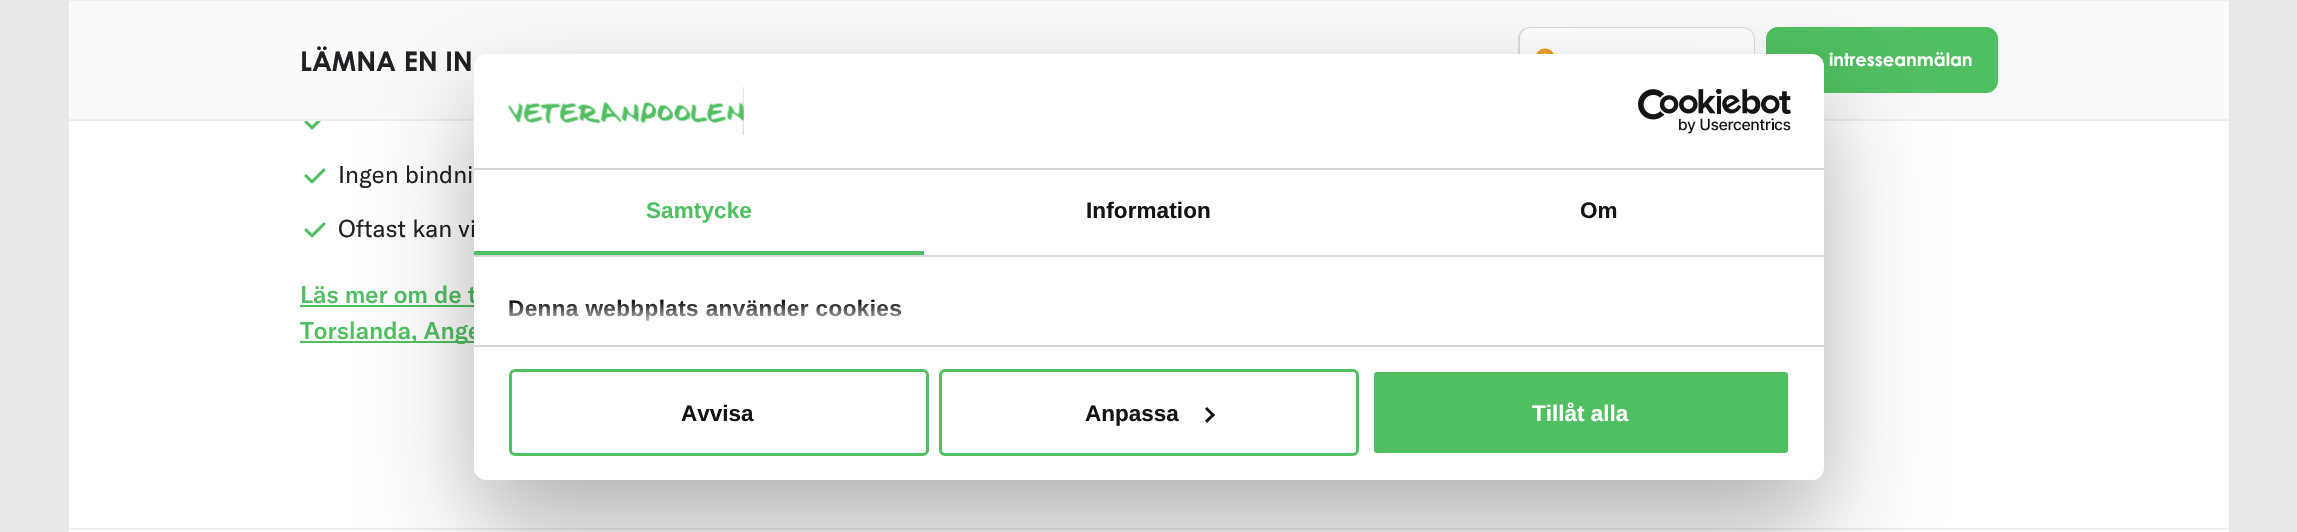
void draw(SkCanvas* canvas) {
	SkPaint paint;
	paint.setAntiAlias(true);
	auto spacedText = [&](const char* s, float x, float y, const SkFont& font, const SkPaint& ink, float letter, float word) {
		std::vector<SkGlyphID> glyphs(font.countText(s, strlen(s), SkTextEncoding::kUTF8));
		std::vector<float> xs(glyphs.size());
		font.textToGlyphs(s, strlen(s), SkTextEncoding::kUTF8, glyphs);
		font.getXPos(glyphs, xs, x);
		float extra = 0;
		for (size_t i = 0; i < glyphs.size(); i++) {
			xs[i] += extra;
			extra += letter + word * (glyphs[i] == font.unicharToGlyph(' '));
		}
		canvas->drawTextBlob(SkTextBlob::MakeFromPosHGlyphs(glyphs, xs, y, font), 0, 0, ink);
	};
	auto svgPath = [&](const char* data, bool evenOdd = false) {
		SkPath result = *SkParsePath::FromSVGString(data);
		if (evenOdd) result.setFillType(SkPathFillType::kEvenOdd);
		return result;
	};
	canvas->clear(0xffe9e8e8);
	paint.setColor(0xffeeeeee);
	canvas->drawRect(SkRect::MakeXYWH(69, 0, 2160, 1), paint);
	paint.setColor(0xffffffff);
	canvas->drawRect(SkRect::MakeXYWH(69, 121, 2160, 411), paint);
	paint.setColor(0xfff9fafb);
	canvas->drawRect(SkRect::MakeXYWH(69, 1, 2160, 118), paint);
	paint.setColor(0xffeeeeee);
	canvas->drawRect(SkRect::MakeXYWH(69, 119, 2160, 2), paint);
	SkFont f1(fontMgr->matchFamilyStyle("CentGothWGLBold", SkFontStyle::Normal()), 27);
	f1.setSubpixel(true);
	paint.setColor(0xff1f2124);
	canvas->drawString("LÄMNA EN IN", 300, 71, f1, paint);
	paint.setColor(0xffffffff);
	canvas->drawPath(svgPath("M1530 27H1574V95H1530C1523.5 95 1518 89.5 1518 83V39C1518 32.5 1523.5 27 1530 27Z"), paint);
	paint.setColor(0xffd9ddde);
	canvas->drawPath(svgPath("M1530 27H1574V94H1530C1523 94 1518 89 1518 82V39C1518 32 1523 27 1530 27ZM1530 28H1574V93H1530C1524 93 1520 88 1520 82V39C1520 33 1524 28 1530 28Z", true), paint);
	canvas->drawImageRect(SkImages::DeferredFromEncodedData(SkData::MakeFromFileName("img1.png")), SkRect::MakeXYWH(1536, 48, 18, 6), SkSamplingOptions());
	paint.setColor(0xffffffff);
	canvas->drawPath(svgPath("M1574 29H1743C1749 29 1754 34 1754 40V82C1754 88 1749 93 1743 93H1574Z"), paint);
	paint.setColor(0xffd9ddde);
	canvas->drawPath(svgPath("M1574 27H1743C1750 27 1755 32 1755 39V82C1755 89 1750 94 1743 94H1574ZM1574 28H1743C1749 28 1754 33 1754 39V82C1754 88 1749 93 1743 93H1574Z", true), paint);
	paint.setColor(0xff50bf61);
	canvas->drawRoundRect(SkRect::MakeXYWH(1767, 28, 230, 64), 11, 11, paint);
	paint.setStroke(true);
	paint.setStrokeWidth(2);
	canvas->drawRoundRect(SkRect::MakeXYWH(1767, 28, 230, 64), 11, 11, paint);
	SkFont f2(fontMgr->matchFamilyStyle("CentGothWGLBold", SkFontStyle::Normal()), 18);
	f2.setSubpixel(true);
	paint.setStroke(false);
	paint.setColor(0xffffffff);
	canvas->drawString("intresseanmälan", 1829, 66, f2, paint);
	canvas->drawImageRect(SkImages::DeferredFromEncodedData(SkData::MakeFromFileName("img2.png")), SkRect::MakeXYWH(304, 121, 17, 9), SkSamplingOptions());
	canvas->drawImageRect(SkImages::DeferredFromEncodedData(SkData::MakeFromFileName("img3.png")), SkRect::MakeXYWH(304, 168, 22, 16), SkSamplingOptions());
	SkFont f3(fontMgr->matchFamilyStyle("GT America", SkFontStyle::Normal()), 24);
	f3.setSubpixel(true);
	paint.setColor(0xff1f2124);
	canvas->drawString("Ingen bindni", 338, 183, f3, paint);
	canvas->drawImageRect(SkImages::DeferredFromEncodedData(SkData::MakeFromFileName("img3.png")), SkRect::MakeXYWH(304, 222, 22, 16), SkSamplingOptions());
	canvas->drawString("Oftast kan vi", 338, 237, f3, paint);
	SkFont f4(fontMgr->matchFamilyStyle("GT America", SkFontStyle(500, SkFontStyle::kNormal_Width, SkFontStyle::kUpright_Slant)), 24);
	f4.setSubpixel(true);
	paint.setColor(0xff50bf61);
	canvas->drawString("Läs mer om de t", 300, 303, f4, paint);
	canvas->drawRect(SkRect::MakeXYWH(300, 305, 174, 2), paint);
	canvas->drawRect(SkRect::MakeXYWH(300, 341, 174, 2), paint);
	canvas->drawString("Torslanda, Ange", 300, 339, f4, paint);
	paint.setColor(0xffeeeeee);
	canvas->drawRect(SkRect::MakeXYWH(69, 528, 2160, 2), paint);
	paint.setColor(0x4d000000);
	paint.setMaskFilter(SkMaskFilter::MakeBlur(kNormal_SkBlurStyle, 51));
	canvas->drawRoundRect(SkRect::MakeXYWH(474, 102, 1350, 426), 12, 12, paint);
	paint.setMaskFilter(nullptr);
	paint.setColor(0xffffffff);
	canvas->drawRoundRect(SkRect::MakeXYWH(474, 54, 1350, 426), 12, 12, paint);
	paint.setColor(0xffd6d6d6);
	canvas->drawRect(SkRect::MakeXYWH(474, 168, 1350, 2), paint);
	canvas->drawImageRect(SkImages::DeferredFromEncodedData(SkData::MakeFromFileName("img4.png")), SkRect::MakeXYWH(508, 87, 236, 48), SkSamplingOptions());
	canvas->drawImageRect(SkImages::DeferredFromEncodedData(SkData::MakeFromFileName("img5.png")), SkRect::MakeXYWH(1638, 89, 153, 45), SkSamplingOptions());
	canvas->drawRect(SkRect::MakeXYWH(474, 255, 1350, 2), paint);
	paint.setColor(0xff50bf61);
	canvas->drawRect(SkRect::MakeXYWH(474, 251, 450, 4), paint);
	SkFont f5(fontMgr->matchFamilyStyle("Liberation Sans", SkFontStyle::Bold()), 22.5);
	f5.setSubpixel(true);
	spacedText("Samtycke", 646, 218, f5, paint, 0.1, 0);
	paint.setColor(0xff141414);
	spacedText("Information", 1086, 218, f5, paint, 0.1, 0);
	spacedText("Om", 1580, 218, f5, paint, 0.1, 0);
	paint.setColor(0xffd6d6d6);
	canvas->drawRect(SkRect::MakeXYWH(474, 345, 1350, 2), paint);
	paint.setColor(0xff141414);
	spacedText("Denna webbplats använder cookies", 508, 316, f5, paint, 0.4, 0);
	{
		const SkColor colors[] = {0xffffffff, 0xccffffff, 0x00ffffff};
		const float stops[] = {0, 0.5, 1};
		const SkPoint ends[] = {{1134, 345}, {1134, 302}};
		paint.setShader(SkGradientShader::MakeLinear(ends, colors, stops, 3, SkTileMode::kClamp));
		paint.setAlpha(255);
	}
	canvas->drawRect(SkRect::MakeXYWH(509, 303, 391, 18), paint);
	paint.setStroke(true);
	paint.setStrokeWidth(3);
	paint.setShader(nullptr);
	paint.setColor(0xff50bf61);
	canvas->drawRoundRect(SkRect::MakeXYWH(510.5, 370.5, 417, 84), 4.5, 4.5, paint);
	paint.setStroke(false);
	paint.setColor(0xff141414);
	canvas->drawString("Avvisa", 681, 421, f5, paint);
	paint.setStroke(true);
	paint.setColor(0xff50bf61);
	canvas->drawRoundRect(SkRect::MakeXYWH(940.5, 370.5, 417, 84), 4.5, 4.5, paint);
	paint.setStroke(false);
	paint.setColor(0xff141414);
	canvas->drawString("Anpassa", 1085, 421, f5, paint);
	canvas->drawPath(svgPath("M1207 407L1215 415L1213 417L1205 409Z"), paint);
	canvas->drawPath(svgPath("M1213 413L1215 415L1207 423L1205 420.5Z"), paint);
	paint.setColor(0xff50bf61);
	canvas->drawRoundRect(SkRect::MakeXYWH(1372.5, 370.5, 417, 84), 4.5, 4.5, paint);
	paint.setStroke(true);
	paint.setColor(0xffffffff);
	canvas->drawRoundRect(SkRect::MakeXYWH(1372.5, 370.5, 417, 84), 4.5, 4.5, paint);
	paint.setStroke(false);
	canvas->drawString("Tillåt alla", 1532, 421, f5, paint);
	canvas->drawRect(SkRect::MakeXYWH(1813, 479, 2, 1), paint);
}
